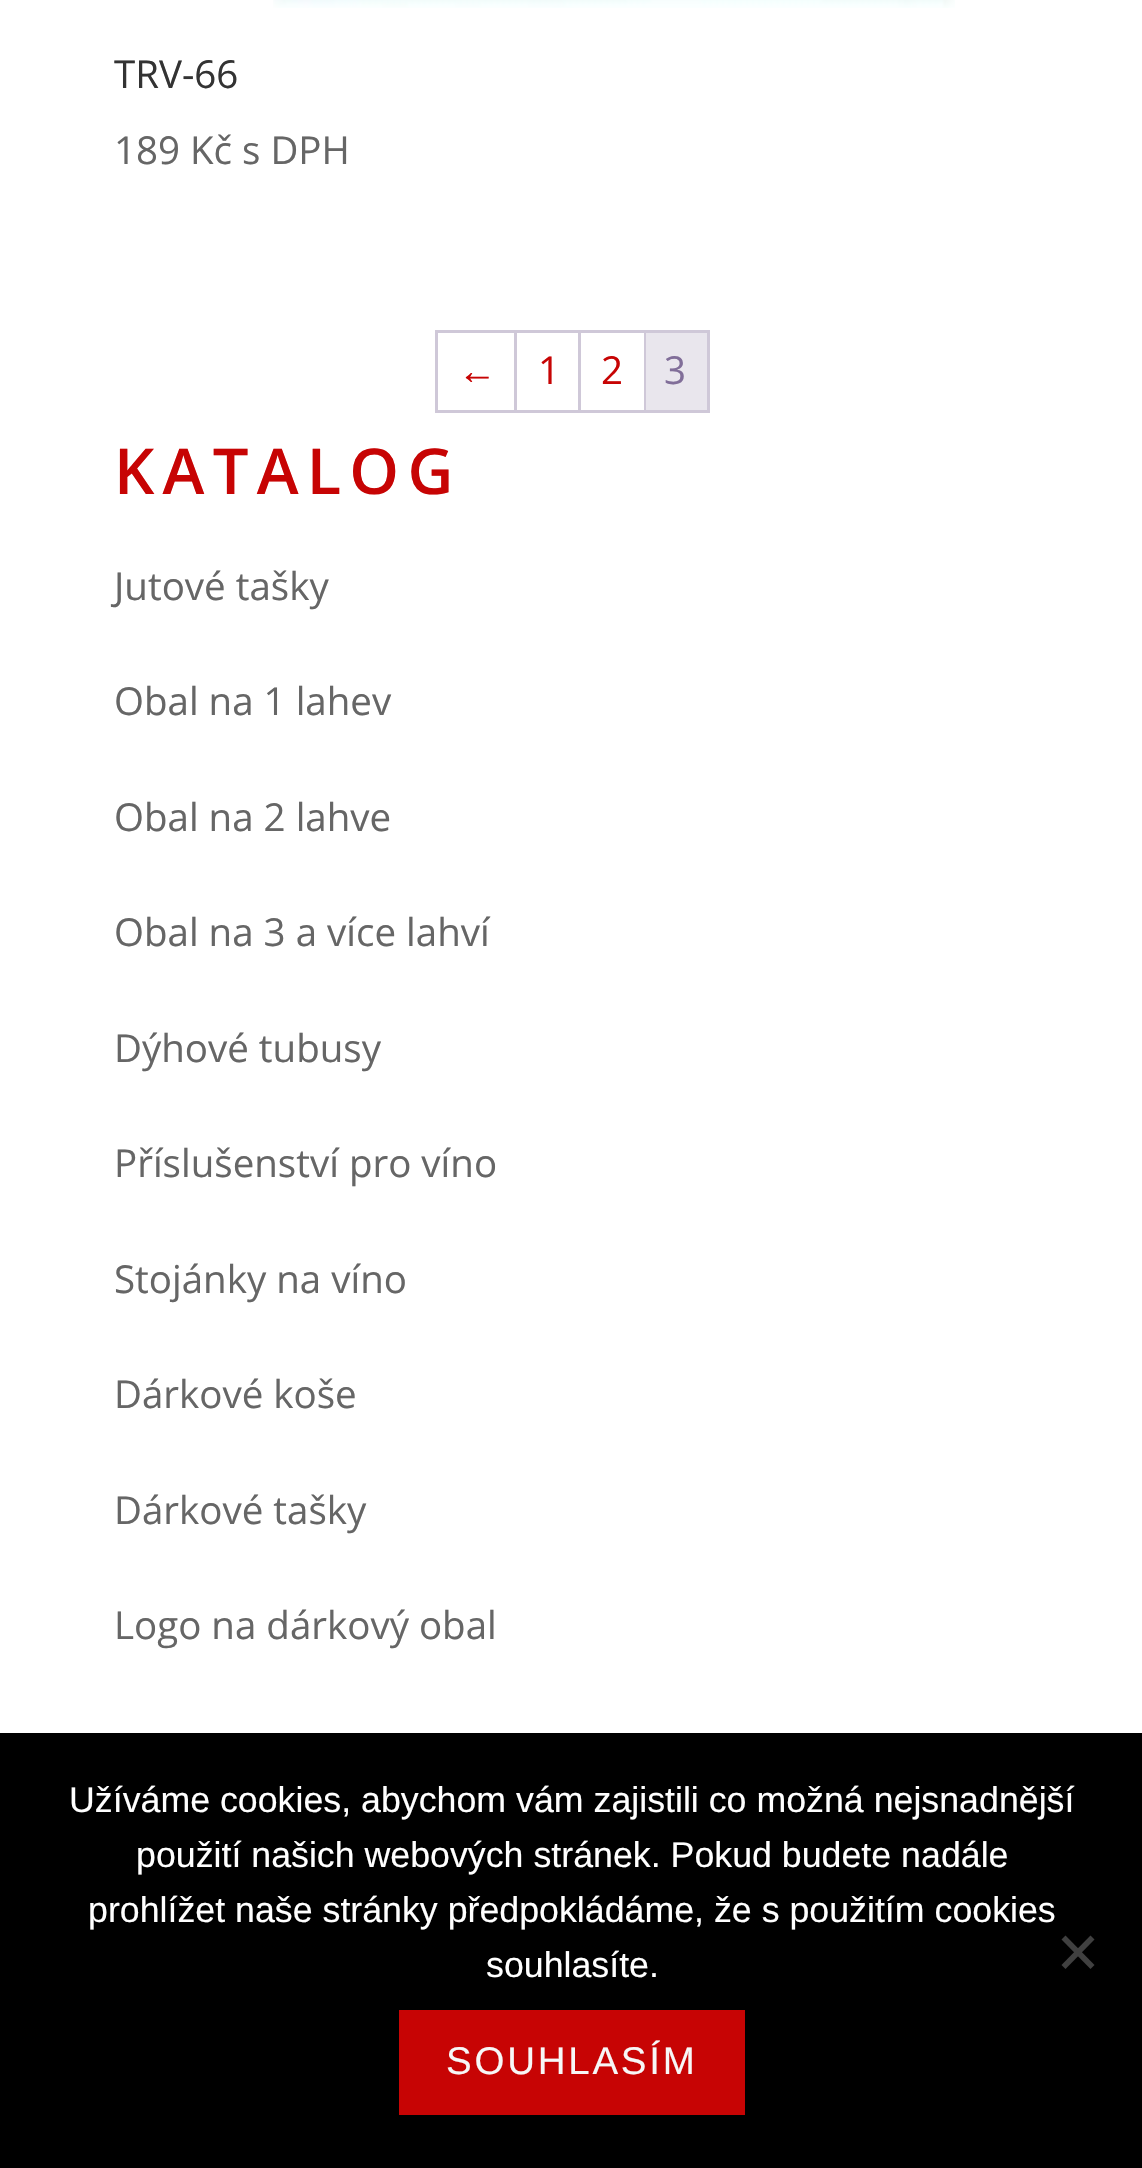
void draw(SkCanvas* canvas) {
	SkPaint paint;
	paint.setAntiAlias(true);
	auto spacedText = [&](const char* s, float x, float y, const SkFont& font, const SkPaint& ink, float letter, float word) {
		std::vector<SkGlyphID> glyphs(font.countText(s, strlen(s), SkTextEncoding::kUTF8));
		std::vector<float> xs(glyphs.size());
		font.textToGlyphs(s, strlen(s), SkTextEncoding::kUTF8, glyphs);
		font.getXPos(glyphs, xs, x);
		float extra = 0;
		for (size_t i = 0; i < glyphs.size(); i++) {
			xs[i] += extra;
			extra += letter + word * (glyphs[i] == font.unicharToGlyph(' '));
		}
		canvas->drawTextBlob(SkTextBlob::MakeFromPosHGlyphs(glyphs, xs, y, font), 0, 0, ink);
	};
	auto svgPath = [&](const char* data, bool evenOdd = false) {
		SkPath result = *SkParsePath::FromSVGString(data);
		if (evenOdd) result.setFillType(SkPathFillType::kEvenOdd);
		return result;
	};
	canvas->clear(0xffffffff);
	canvas->drawImageRect(SkImages::DeferredFromEncodedData(SkData::MakeFromFileName("img1.png")), SkRect::MakeXYWH(273, 0, 682, 8), SkSamplingOptions());
	SkFont f1(fontMgr->matchFamilyStyle("Open Sans", SkFontStyle::Normal()), 38.5);
	f1.setSubpixel(true);
	paint.setColor(0xff333333);
	canvas->drawString("TRV-66", 114, 88, f1, paint);
	paint.setColor(0xff666666);
	canvas->drawString("189 Kč s DPH", 114, 164, f1, paint);
	paint.setColor(0xffcfc8d8);
	canvas->drawRect(SkRect::MakeXYWH(435, 330, 275, 3), paint);
	canvas->drawRect(SkRect::MakeXYWH(435, 410, 275, 3), paint);
	canvas->drawRect(SkRect::MakeXYWH(435, 330, 3, 83), paint);
	canvas->drawRect(SkRect::MakeXYWH(514, 333, 3, 77), paint);
	SkFont f2(fontMgr->matchFamilyStyle("Liberation Sans", SkFontStyle::Normal()), 38.5);
	f2.setSubpixel(true);
	paint.setColor(0xffc70404);
	canvas->drawString("←", 458, 384, f2, paint);
	paint.setColor(0xffcfc8d8);
	canvas->drawRect(SkRect::MakeXYWH(578, 333, 3, 77), paint);
	paint.setColor(0xffc70404);
	canvas->drawString("1", 538, 384, f1, paint);
	paint.setColor(0xffcfc8d8);
	canvas->drawRect(SkRect::MakeXYWH(644, 333, 2, 77), paint);
	paint.setColor(0xffc70404);
	canvas->drawString("2", 601, 384, f1, paint);
	paint.setColor(0xffcfc8d8);
	canvas->drawRect(SkRect::MakeXYWH(707, 333, 3, 77), paint);
	paint.setColor(0xffe9e6ed);
	canvas->drawRect(SkRect::MakeXYWH(646, 333, 61, 77), paint);
	paint.setColor(0xff816e99);
	canvas->drawString("3", 664, 384, f1, paint);
	SkFont f3(fontMgr->matchFamilyStyle("Open Sans", SkFontStyle(600, SkFontStyle::kNormal_Width, SkFontStyle::kUpright_Slant)), 63.25);
	f3.setSubpixel(true);
	paint.setColor(0xffc70404);
	spacedText("KATALOG", 114, 494, f3, paint, 8.25, 0);
	paint.setColor(0xff666666);
	canvas->drawString("Jutové tašky", 114, 600, f1, paint);
	canvas->drawString("Obal na 1 lahev", 114, 715, f1, paint);
	canvas->drawString("Obal na 2 lahve", 114, 831, f1, paint);
	canvas->drawString("Obal na 3 a více lahví", 114, 946, f1, paint);
	canvas->drawString("Dýhové tubusy", 114, 1062, f1, paint);
	canvas->drawString("Příslušenství pro víno", 114, 1177, f1, paint);
	canvas->drawString("Stojánky na víno", 114, 1293, f1, paint);
	canvas->drawString("Dárkové koše", 114, 1408, f1, paint);
	canvas->drawString("Dárkové tašky", 114, 1524, f1, paint);
	canvas->drawString("Logo na dárkový obal", 114, 1639, f1, paint);
	paint.setColor(0xff000000);
	canvas->drawRect(SkRect::MakeXYWH(0, 1733, 1142, 435), paint);
	SkFont f4(fontMgr->matchFamilyStyle("Liberation Sans", SkFontStyle::Normal()), 35.75);
	f4.setSubpixel(true);
	paint.setColor(0xffffffff);
	canvas->drawString("Užíváme cookies, abychom vám zajistili co možná nejsnadnější", 69, 1812, f4, paint);
	canvas->drawString("použití našich webových stránek. Pokud budete nadále", 136, 1867, f4, paint);
	canvas->drawString("prohlížet naše stránky předpokládáme, že s použitím cookies", 88, 1922, f4, paint);
	canvas->drawString("souhlasíte.", 486, 1977, f4, paint);
	paint.setColor(0xff404040);
	canvas->drawPath(svgPath("M1090.5 1935.5L1094.5 1939.5L1065.5 1969L1061.5 1965Z"), paint);
	canvas->drawPath(svgPath("M1061.5 1939.5L1065.5 1935.5L1094.5 1965L1090.5 1969Z"), paint);
	paint.setColor(0xffc70404);
	canvas->drawRect(SkRect::MakeXYWH(399, 2010, 346, 105), paint);
	paint.setColor(0xfff7f7f7);
	spacedText("SOUHLASÍM", 446, 2074, f2, paint, 2.75, 0);
}
